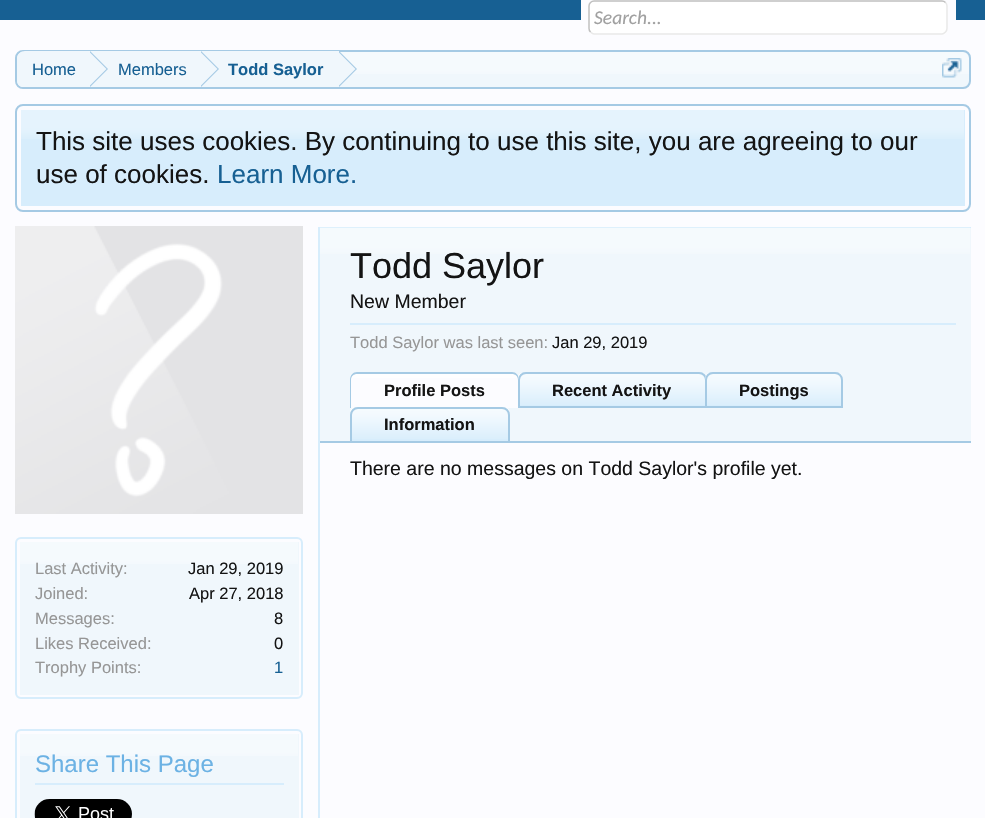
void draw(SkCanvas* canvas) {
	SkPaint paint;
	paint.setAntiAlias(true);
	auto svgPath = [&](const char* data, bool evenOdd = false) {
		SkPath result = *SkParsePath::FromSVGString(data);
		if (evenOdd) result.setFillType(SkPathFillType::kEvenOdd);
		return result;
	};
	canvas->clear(0xff176093);
	paint.setColor(0xfffcfcff);
	canvas->drawRect(SkRect::MakeXYWH(581, 0, 375, 20), paint);
	canvas->drawRect(SkRect::MakeXYWH(0, 20, 985, 798), paint);
	paint.setColor(0xffffffff);
	canvas->drawRoundRect(SkRect::MakeXYWH(588, 0, 360, 35), 6, 6, paint);
	paint.setStroke(true);
	paint.setStrokeWidth(1.5);
	paint.setColor(0xffe9e9e9);
	canvas->drawPath(svgPath("M945.5 2.5C946.5 3.5 947 4.5 947 6V28.5C947 30 946.5 31 945.5 32C944.5 33 943.5 34 942 34H594C592.5 34 591.5 33 590.5 32"), paint);
	paint.setColor(0xffc0c0c0);
	canvas->drawPath(svgPath("M590.5 32C589.5 31 589 30 589 28.5V6C589 4.5 589.5 3.5 590.5 2.5C591.5 1.5 592.5 1 594 1H942C943.5 1 944.5 1.5 945.5 2.5"), paint);
	SkFont f1(fontMgr->matchFamilyStyle("Carlito", SkFontStyle::Italic()), 19.5);
	f1.setSubpixel(true);
	paint.setStroke(false);
	paint.setColor(0xffa0a0a0);
	canvas->drawString("Search...", 594, 24, f1, paint);
	paint.setColor(0xfff0f7fc);
	canvas->drawRoundRect(SkRect::MakeXYWH(15, 50, 956, 39), 8, 8, paint);
	canvas->drawImageRect(SkImages::DeferredFromEncodedData(SkData::MakeFromFileName("img1.png")), SkRect::MakeXYWH(15, 51, 955, 23), SkSamplingOptions());
	paint.setStroke(true);
	paint.setStrokeWidth(2);
	paint.setColor(0xffa5cae4);
	canvas->drawRoundRect(SkRect::MakeXYWH(16, 51, 954, 37), 7, 7, paint);
	canvas->save();
	canvas->clipPath(svgPath("M23 51H963C966.5 51 969 53.5 969 57V81C969 84.5 966.5 87 963 87H23C19.5 87 17 84.5 17 81V57C17 53.5 19.5 51 23 51Z"), true);
	paint.setStroke(false);
	paint.setColor(0xfff0f7fc);
	canvas->drawPath(svgPath("M25 51H90V89H25C20.5 89 17 85.5 17 81V59C17 54.5 20.5 51 25 51Z"), paint);
	canvas->restore();
	SkFont f2(fontMgr->matchFamilyStyle("Liberation Sans", SkFontStyle::Normal()), 16.5);
	f2.setSubpixel(true);
	paint.setColor(0xff176093);
	canvas->drawString("Home", 32, 75, f2, paint);
	paint.setColor(0xfff0f7fc);
	canvas->drawRect(SkRect::MakeXYWH(90, 51, 249, 23), paint);
	paint.setColor(0xffa5cae4);
	canvas->drawPath(svgPath("M90 87V51L108 69Z"), paint);
	paint.setColor(0xfff0f7fc);
	canvas->drawPath(svgPath("M88.5 87V51L106.5 69Z"), paint);
	paint.setColor(0xff176093);
	canvas->drawString("Members", 118, 75, f2, paint);
	paint.setColor(0xffa5cae4);
	canvas->drawPath(svgPath("M201 87V51L219 69Z"), paint);
	paint.setColor(0xfff0f7fc);
	canvas->drawPath(svgPath("M199.5 87V51L217.5 69Z"), paint);
	SkFont f3(fontMgr->matchFamilyStyle("Liberation Sans", SkFontStyle::Bold()), 16.5);
	f3.setSubpixel(true);
	paint.setColor(0xff176093);
	canvas->drawString("Todd Saylor", 228, 75, f3, paint);
	paint.setColor(0xffa5cae4);
	canvas->drawPath(svgPath("M339 87V51L357 69Z"), paint);
	paint.setColor(0xfff0f7fc);
	canvas->drawPath(svgPath("M337.5 87V51L355.5 69Z"), paint);
	canvas->drawImageRect(SkImages::DeferredFromEncodedData(SkData::MakeFromFileName("img2.png")), SkRect::MakeXYWH(942, 58, 20, 20), SkSamplingOptions());
	paint.setStroke(true);
	paint.setColor(0xffa5cae4);
	canvas->drawRoundRect(SkRect::MakeXYWH(16, 105, 954, 106), 7, 7, paint);
	paint.setStroke(false);
	paint.setColor(0xffd7edfc);
	canvas->drawRect(SkRect::MakeXYWH(21, 110, 944, 96), paint);
	canvas->drawImageRect(SkImages::DeferredFromEncodedData(SkData::MakeFromFileName("img3.png")), SkRect::MakeXYWH(21, 110, 943, 29), SkSamplingOptions());
	SkFont f4(fontMgr->matchFamilyStyle("Liberation Sans", SkFontStyle::Normal()), 26);
	f4.setSubpixel(true);
	paint.setColor(0xff141414);
	canvas->drawString("This site uses cookies. By continuing to use this site, you are agreeing to our", 36, 150, f4, paint);
	canvas->drawString("use of cookies.", 36, 183, f4, paint);
	paint.setColor(0xff176093);
	canvas->drawString("Learn More.", 217, 183, f4, paint);
	paint.setColor(0xffd7edfc);
	canvas->drawRect(SkRect::MakeXYWH(320, 227, 651, 1), paint);
	paint.setColor(0xfff0f7fc);
	canvas->drawRect(SkRect::MakeXYWH(320, 228, 651, 213), paint);
	canvas->drawImageRect(SkImages::DeferredFromEncodedData(SkData::MakeFromFileName("img4.png")), SkRect::MakeXYWH(320, 227, 650, 27), SkSamplingOptions());
	SkFont f5(fontMgr->matchFamilyStyle("Liberation Sans", SkFontStyle::Normal()), 36);
	f5.setSubpixel(true);
	paint.setColor(0xff141414);
	canvas->drawString("Todd Saylor", 350, 278, f5, paint);
	SkFont f6(fontMgr->matchFamilyStyle("Liberation Sans", SkFontStyle::Normal()), 19.5);
	f6.setSubpixel(true);
	canvas->drawString("New Member", 350, 308, f6, paint);
	paint.setColor(0xffd7edfc);
	canvas->drawRect(SkRect::MakeXYWH(350, 323, 606, 2), paint);
	paint.setColor(0xff969696);
	canvas->drawString("Todd Saylor was last seen:", 350, 348, f2, paint);
	paint.setColor(0xff141414);
	canvas->drawString("Jan 29, 2019", 552, 348, f2, paint);
	paint.setColor(0xffa5cae4);
	canvas->drawRect(SkRect::MakeXYWH(320, 441, 651, 2), paint);
	paint.setColor(0xfffcfcff);
	canvas->drawPath(svgPath("M358 372H511C515.5 372 519 375.5 519 380V408H350V380C350 375.5 353.5 372 358 372Z"), paint);
	canvas->drawImageRect(SkImages::DeferredFromEncodedData(SkData::MakeFromFileName("img5.png")), SkRect::MakeXYWH(350, 373, 169, 5), SkSamplingOptions());
	paint.setColor(0xffa5cae4);
	canvas->drawPath(svgPath("M357 372H512C516 372 519 375 519 380V408H350V380C350 375 353 372 357 372ZM357 374H512C515 374 518 376 518 380V408H351V380C351 376 354 374 357 374Z", true), paint);
	paint.setColor(0xff141414);
	canvas->drawString("Profile Posts", 384, 396, f3, paint);
	paint.setColor(0xffd7edfc);
	canvas->drawPath(svgPath("M526 372H699C703.5 372 707 375.5 707 380V408H518V380C518 375.5 521.5 372 526 372Z"), paint);
	canvas->drawImageRect(SkImages::DeferredFromEncodedData(SkData::MakeFromFileName("img6.png")), SkRect::MakeXYWH(518, 373, 188, 32), SkSamplingOptions());
	paint.setStroke(true);
	paint.setColor(0xffa5cae4);
	canvas->drawPath(svgPath("M526 373H699C703 373 706 376 706 380V407H519V380C519 376 522 373 526 373Z"), paint);
	paint.setStroke(false);
	paint.setColor(0xff141414);
	canvas->drawString("Recent Activity", 552, 396, f3, paint);
	paint.setColor(0xffd7edfc);
	canvas->drawPath(svgPath("M713 372H835C839.5 372 843 375.5 843 380V408H705V380C705 375.5 708.5 372 713 372Z"), paint);
	canvas->drawImageRect(SkImages::DeferredFromEncodedData(SkData::MakeFromFileName("img7.png")), SkRect::MakeXYWH(705, 373, 138, 32), SkSamplingOptions());
	paint.setStroke(true);
	paint.setColor(0xffa5cae4);
	canvas->drawPath(svgPath("M713 373H835C839 373 842 376 842 380V407H706V380C706 376 709 373 713 373Z"), paint);
	paint.setStroke(false);
	paint.setColor(0xff141414);
	canvas->drawString("Postings", 739, 396, f3, paint);
	paint.setColor(0xffd7edfc);
	canvas->drawPath(svgPath("M358 407H502C506.5 407 510 410.5 510 415V443H350V415C350 410.5 353.5 407 358 407Z"), paint);
	canvas->drawImageRect(SkImages::DeferredFromEncodedData(SkData::MakeFromFileName("img8.png")), SkRect::MakeXYWH(350, 407, 160, 32), SkSamplingOptions());
	paint.setStroke(true);
	paint.setColor(0xffa5cae4);
	canvas->drawPath(svgPath("M358 408H502C506 408 509 411 509 415V442H351V415C351 411 354 408 358 408Z"), paint);
	paint.setStroke(false);
	paint.setColor(0xff141414);
	canvas->drawString("Information", 384, 430, f3, paint);
	canvas->drawString("There are no messages on Todd Saylor's profile yet.", 350, 475, f6, paint);
	paint.setColor(0xffd7edfc);
	canvas->drawRect(SkRect::MakeXYWH(318, 227, 2, 591), paint);
	canvas->drawImageRect(SkImages::DeferredFromEncodedData(SkData::MakeFromFileName("img9.png")), SkRect::MakeXYWH(15, 226, 288, 288), SkSamplingOptions());
	paint.setStroke(true);
	canvas->drawRoundRect(SkRect::MakeXYWH(16, 538, 286, 160), 5, 5, paint);
	paint.setStroke(false);
	paint.setColor(0xfff0f7fc);
	canvas->drawRect(SkRect::MakeXYWH(20, 542, 279, 153), paint);
	canvas->drawImageRect(SkImages::DeferredFromEncodedData(SkData::MakeFromFileName("img10.png")), SkRect::MakeXYWH(20, 542, 278, 22), SkSamplingOptions());
	paint.setColor(0xff969696);
	canvas->drawString("Last Activity:", 35, 574, f2, paint);
	paint.setColor(0xff141414);
	canvas->drawString("Jan 29, 2019", 188, 574, f2, paint);
	paint.setColor(0xff969696);
	canvas->drawString("Joined:", 35, 599, f2, paint);
	paint.setColor(0xff141414);
	canvas->drawString("Apr 27, 2018", 189, 599, f2, paint);
	paint.setColor(0xff969696);
	canvas->drawString("Messages:", 35, 624, f2, paint);
	paint.setColor(0xff141414);
	canvas->drawString("8", 274, 624, f2, paint);
	paint.setColor(0xff969696);
	canvas->drawString("Likes Received:", 35, 649, f2, paint);
	paint.setColor(0xff141414);
	canvas->drawString("0", 274, 649, f2, paint);
	paint.setColor(0xff969696);
	canvas->drawString("Trophy Points:", 35, 673, f2, paint);
	paint.setColor(0xff176093);
	canvas->drawString("1", 274, 673, f2, paint);
	paint.setStroke(true);
	paint.setColor(0xffd7edfc);
	canvas->drawRoundRect(SkRect::MakeXYWH(16, 730, 286, 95), 5, 5, paint);
	paint.setStroke(false);
	paint.setColor(0xfff0f7fc);
	canvas->drawRect(SkRect::MakeXYWH(20, 734, 279, 84), paint);
	canvas->drawImageRect(SkImages::DeferredFromEncodedData(SkData::MakeFromFileName("img10.png")), SkRect::MakeXYWH(20, 734, 278, 22), SkSamplingOptions());
	paint.setColor(0xffd7edfc);
	canvas->drawRect(SkRect::MakeXYWH(35, 783, 249, 2), paint);
	SkFont f7(fontMgr->matchFamilyStyle("Liberation Sans", SkFontStyle::Normal()), 24);
	f7.setSubpixel(true);
	paint.setColor(0xff6cb2e4);
	canvas->drawString("Share This Page", 35, 772, f7, paint);
	canvas->drawImageRect(SkImages::DeferredFromEncodedData(SkData::MakeFromFileName("img11.png")), SkRect::MakeXYWH(34, 799, 98, 19), SkSamplingOptions());
}
